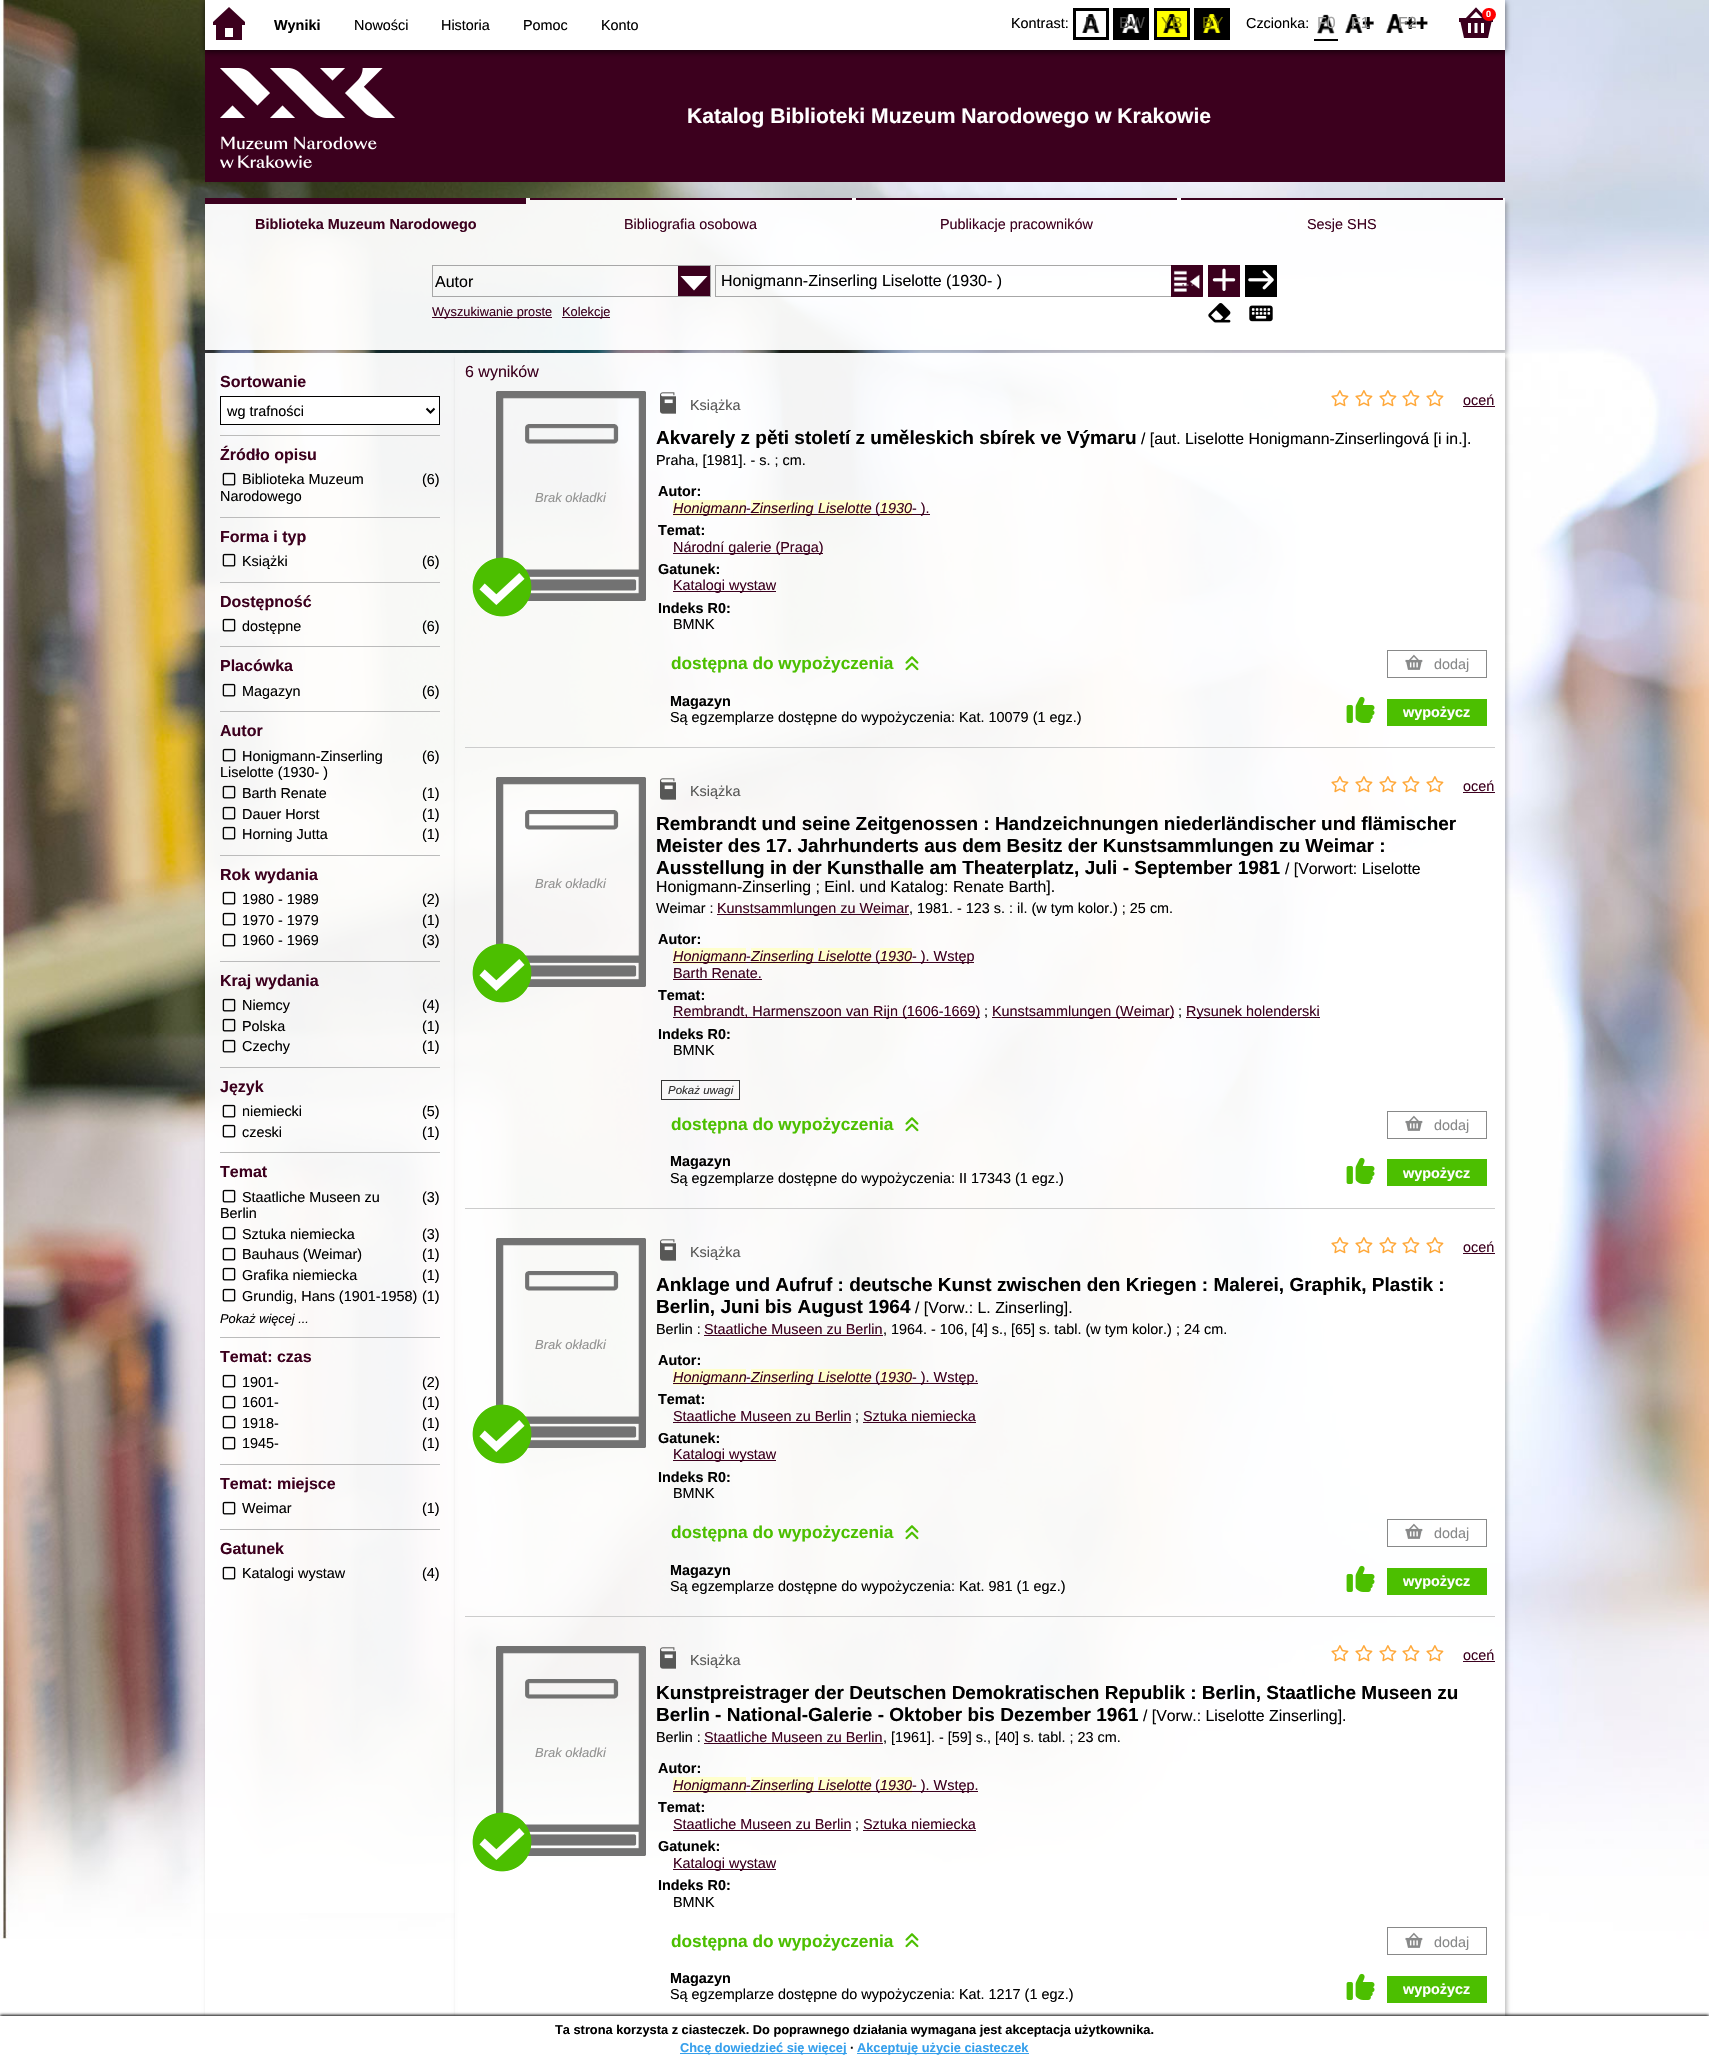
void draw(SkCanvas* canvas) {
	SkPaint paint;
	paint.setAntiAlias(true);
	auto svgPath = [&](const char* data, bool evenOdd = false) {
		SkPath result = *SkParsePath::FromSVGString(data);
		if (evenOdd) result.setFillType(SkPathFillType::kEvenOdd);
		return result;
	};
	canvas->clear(0xffffffff);
	canvas->drawImageRect(SkImages::DeferredFromEncodedData(SkData::MakeFromFileName("img1.png")), SkRect::MakeXYWH(0, 0, 1709, 1939), SkSamplingOptions());
	paint.setColor(0xff3c001e);
	canvas->drawRect(SkRect::MakeXYWH(205, 50, 1300, 132), paint);
	paint.setColor(0xa6000000);
	paint.setMaskFilter(SkMaskFilter::MakeBlur(kNormal_SkBlurStyle, 3));
	canvas->drawRect(SkRect::MakeXYWH(205, 2, 1300, 50), paint);
	paint.setMaskFilter(nullptr);
	paint.setColor(0xffffffff);
	canvas->drawRect(SkRect::MakeXYWH(205, 0, 1300, 50), paint);
	canvas->drawImageRect(SkImages::DeferredFromEncodedData(SkData::MakeFromFileName("img2.png")), SkRect::MakeXYWH(213, 7, 32, 33), SkSamplingOptions());
	SkFont f1(fontMgr->matchFamilyStyle("Liberation Sans", SkFontStyle::Bold()), 14.4);
	f1.setSubpixel(true);
	paint.setColor(0xff000000);
	canvas->drawString("Wyniki", 274, 30, f1, paint);
	SkFont f2(fontMgr->matchFamilyStyle("Liberation Sans", SkFontStyle::Normal()), 14.4);
	f2.setSubpixel(true);
	canvas->drawString("Nowości", 354, 30, f2, paint);
	canvas->drawString("Historia", 441, 30, f2, paint);
	canvas->drawString("Pomoc", 523, 30, f2, paint);
	canvas->drawString("Konto", 601, 30, f2, paint);
	canvas->drawImageRect(SkImages::DeferredFromEncodedData(SkData::MakeFromFileName("img3.png")), SkRect::MakeXYWH(1459, 7, 34, 31), SkSamplingOptions());
	paint.setColor(0xffff0000);
	canvas->drawRoundRect(SkRect::MakeXYWH(1482, 8, 14, 13), 6.5, 6.5, paint);
	SkFont f3(fontMgr->matchFamilyStyle("Liberation Sans", SkFontStyle::Bold()), 9);
	f3.setSubpixel(true);
	paint.setColor(0xffffffff);
	canvas->drawString("0", 1486, 17, f3, paint);
	paint.setColor(0xff000000);
	canvas->drawString("Kontrast:", 1011, 28, f2, paint);
	canvas->drawImageRect(SkImages::DeferredFromEncodedData(SkData::MakeFromFileName("img4.png")), SkRect::MakeXYWH(1073, 8, 36, 32), SkSamplingOptions());
	SkFont f4(fontMgr->matchFamilyStyle("Liberation Sans", SkFontStyle::Normal()), 16);
	f4.setSubpixel(true);
	paint.setColor(0xff282828);
	canvas->drawString("D", 1085, 28, f4, paint);
	canvas->drawImageRect(SkImages::DeferredFromEncodedData(SkData::MakeFromFileName("img5.png")), SkRect::MakeXYWH(1113, 8, 36, 32), SkSamplingOptions());
	paint.setColor(0xff4e4e4e);
	canvas->drawString("BW", 1119, 28, f4, paint);
	canvas->drawImageRect(SkImages::DeferredFromEncodedData(SkData::MakeFromFileName("img6.png")), SkRect::MakeXYWH(1154, 8, 36, 32), SkSamplingOptions());
	paint.setColor(0xff8c8c00);
	canvas->drawString("YB", 1161, 28, f4, paint);
	canvas->drawImageRect(SkImages::DeferredFromEncodedData(SkData::MakeFromFileName("img7.png")), SkRect::MakeXYWH(1194, 8, 36, 32), SkSamplingOptions());
	paint.setColor(0xff6b6b00);
	canvas->drawString("BY", 1202, 28, f4, paint);
	paint.setColor(0xff000000);
	canvas->drawString("Czcionka:", 1246, 28, f2, paint);
	canvas->drawImageRect(SkImages::DeferredFromEncodedData(SkData::MakeFromFileName("img8.png")), SkRect::MakeXYWH(1317, 14, 18, 20), SkSamplingOptions());
	canvas->drawRect(SkRect::MakeXYWH(1314, 39, 24, 2), paint);
	paint.setColor(0xffa7a7a7);
	canvas->drawString("F0", 1317, 28, f4, paint);
	canvas->drawImageRect(SkImages::DeferredFromEncodedData(SkData::MakeFromFileName("img9.png")), SkRect::MakeXYWH(1345, 14, 29, 19), SkSamplingOptions());
	paint.setColor(0xff929291);
	canvas->drawString("F1", 1351, 28, f4, paint);
	canvas->drawImageRect(SkImages::DeferredFromEncodedData(SkData::MakeFromFileName("img10.png")), SkRect::MakeXYWH(1386, 14, 42, 19), SkSamplingOptions());
	canvas->drawString("F2", 1398, 28, f4, paint);
	canvas->drawImageRect(SkImages::DeferredFromEncodedData(SkData::MakeFromFileName("img11.png")), SkRect::MakeXYWH(220, 68, 175, 100), SkSamplingOptions());
	SkFont f5(fontMgr->matchFamilyStyle("Liberation Sans", SkFontStyle::Bold()), 21.1);
	f5.setSubpixel(true);
	paint.setColor(0xffffffff);
	canvas->drawString("Katalog Biblioteki Muzeum Narodowego w Krakowie", 687, 123, f5, paint);
	canvas->save();
	canvas->clipPath(svgPath("M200 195H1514V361H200ZM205 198H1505V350H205Z", true), true);
	paint.setColor(0x40000000);
	paint.setMaskFilter(SkMaskFilter::MakeBlur(kNormal_SkBlurStyle, 2));
	canvas->drawRect(SkRect::MakeXYWH(207, 202, 1300, 152), paint);
	paint.setMaskFilter(nullptr);
	canvas->restore();
	paint.setColor(0xf2ffffff);
	canvas->drawRect(SkRect::MakeXYWH(205, 198, 1300, 152), paint);
	paint.setColor(0xff3c001e);
	canvas->drawRect(SkRect::MakeXYWH(205, 198, 321, 6), paint);
	canvas->drawString("Biblioteka Muzeum Narodowego", 255, 229, f1, paint);
	canvas->drawRect(SkRect::MakeXYWH(530, 198, 322, 2), paint);
	canvas->drawString("Bibliografia osobowa", 624, 229, f2, paint);
	canvas->drawRect(SkRect::MakeXYWH(856, 198, 321, 2), paint);
	canvas->drawString("Publikacje pracowników", 940, 229, f2, paint);
	canvas->drawRect(SkRect::MakeXYWH(1181, 198, 322, 2), paint);
	canvas->drawString("Sesje SHS", 1307, 229, f2, paint);
	paint.setStroke(true);
	paint.setStrokeWidth(1);
	paint.setColor(0xffa7a7a7);
	canvas->drawRect(SkRect::MakeXYWH(432.5, 265.5, 278, 31), paint);
	paint.setStroke(false);
	paint.setColor(0xff000000);
	canvas->drawString("Autor", 435, 287, f4, paint);
	paint.setColor(0xff3c001e);
	canvas->drawRect(SkRect::MakeXYWH(678, 266, 32, 30), paint);
	paint.setColor(0xffffffff);
	canvas->drawPath(svgPath("M707.5 276L694 290.5L680.5 276Z"), paint);
	paint.setStroke(true);
	paint.setColor(0xffa7a7a7);
	canvas->drawRect(SkRect::MakeXYWH(715.5, 265.5, 487, 31), paint);
	paint.setStroke(false);
	paint.setColor(0xff000000);
	canvas->drawString("Honigmann-Zinserling Liselotte (1930- )", 721, 286, f4, paint);
	paint.setColor(0xff3c001e);
	canvas->drawRect(SkRect::MakeXYWH(1171, 265, 32, 32), paint);
	canvas->drawImageRect(SkImages::DeferredFromEncodedData(SkData::MakeFromFileName("img12.png")), SkRect::MakeXYWH(1173, 270, 30, 27), SkSamplingOptions());
	paint.setColor(0xff7d5569);
	canvas->drawString("...", 1181, 286, f4, paint);
	paint.setColor(0xff3c001e);
	canvas->drawRect(SkRect::MakeXYWH(1208, 265, 32, 32), paint);
	canvas->drawImageRect(SkImages::DeferredFromEncodedData(SkData::MakeFromFileName("img13.png")), SkRect::MakeXYWH(1212, 268, 24, 23), SkSamplingOptions());
	paint.setColor(0xff000000);
	canvas->drawRect(SkRect::MakeXYWH(1245, 265, 32, 32), paint);
	canvas->drawImageRect(SkImages::DeferredFromEncodedData(SkData::MakeFromFileName("img14.png")), SkRect::MakeXYWH(1248, 270, 26, 20), SkSamplingOptions());
	paint.setColor(0xff3c001e);
	canvas->drawRect(SkRect::MakeXYWH(432, 317, 120, 1), paint);
	SkFont f6(fontMgr->matchFamilyStyle("Liberation Sans", SkFontStyle::Normal()), 12.8);
	f6.setSubpixel(true);
	canvas->drawString("Wyszukiwanie proste", 432, 316, f6, paint);
	canvas->drawRect(SkRect::MakeXYWH(562, 317, 48, 1), paint);
	canvas->drawString("Kolekcje", 562, 316, f6, paint);
	canvas->drawImageRect(SkImages::DeferredFromEncodedData(SkData::MakeFromFileName("img15.png")), SkRect::MakeXYWH(1208, 303, 23, 20), SkSamplingOptions());
	canvas->drawImageRect(SkImages::DeferredFromEncodedData(SkData::MakeFromFileName("img16.png")), SkRect::MakeXYWH(1249, 305, 24, 17), SkSamplingOptions());
	canvas->save();
	canvas->clipPath(svgPath("M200 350H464V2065H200ZM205 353H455V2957H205Z", true), true);
	paint.setColor(0x40000000);
	paint.setMaskFilter(SkMaskFilter::MakeBlur(kNormal_SkBlurStyle, 2));
	canvas->drawRect(SkRect::MakeXYWH(207, 357, 250, 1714), paint);
	paint.setMaskFilter(nullptr);
	canvas->restore();
	paint.setColor(0xf2ffffff);
	canvas->drawRect(SkRect::MakeXYWH(205, 353, 250, 1560), paint);
	paint.setColor(0xffbbbbbb);
	canvas->drawRect(SkRect::MakeXYWH(220, 435, 220, 1), paint);
	SkFont f7(fontMgr->matchFamilyStyle("Liberation Sans", SkFontStyle::Bold()), 16);
	f7.setSubpixel(true);
	paint.setColor(0xff3c001e);
	canvas->drawString("Sortowanie", 220, 387, f7, paint);
	paint.setColor(0xffffffff);
	canvas->drawRect(SkRect::MakeXYWH(220.5, 396.5, 219, 28), paint);
	paint.setStroke(true);
	paint.setColor(0xff000000);
	canvas->drawRect(SkRect::MakeXYWH(220.5, 396.5, 219, 28), paint);
	paint.setStrokeWidth(2);
	canvas->drawPath(svgPath("M426.5 408.5L430.5 412.5L434.5 408.5"), paint);
	paint.setStroke(false);
	canvas->drawString("wg trafności", 227, 416, f2, paint);
	paint.setColor(0xffbbbbbb);
	canvas->drawRect(SkRect::MakeXYWH(220, 517, 220, 1), paint);
	paint.setColor(0xff3c001e);
	canvas->drawString("Źródło opisu", 220, 460, f7, paint);
	canvas->drawImageRect(SkImages::DeferredFromEncodedData(SkData::MakeFromFileName("img17.png")), SkRect::MakeXYWH(222, 472, 14, 14), SkSamplingOptions());
	paint.setColor(0xff000000);
	canvas->drawString("Biblioteka Muzeum", 242, 484, f2, paint);
	canvas->drawString("Narodowego", 220, 501, f2, paint);
	canvas->drawString("(6)", 422, 484, f2, paint);
	paint.setColor(0xffbbbbbb);
	canvas->drawRect(SkRect::MakeXYWH(220, 582, 220, 1), paint);
	paint.setColor(0xff3c001e);
	canvas->drawString("Forma i typ", 220, 542, f7, paint);
	canvas->drawImageRect(SkImages::DeferredFromEncodedData(SkData::MakeFromFileName("img18.png")), SkRect::MakeXYWH(222, 553, 14, 14), SkSamplingOptions());
	paint.setColor(0xff000000);
	canvas->drawString("Książki", 242, 566, f2, paint);
	canvas->drawString("(6)", 422, 566, f2, paint);
	paint.setColor(0xffbbbbbb);
	canvas->drawRect(SkRect::MakeXYWH(220, 646, 220, 1), paint);
	paint.setColor(0xff3c001e);
	canvas->drawString("Dostępność", 220, 607, f7, paint);
	canvas->drawImageRect(SkImages::DeferredFromEncodedData(SkData::MakeFromFileName("img19.png")), SkRect::MakeXYWH(222, 618, 14, 14), SkSamplingOptions());
	paint.setColor(0xff000000);
	canvas->drawString("dostępne", 242, 631, f2, paint);
	canvas->drawString("(6)", 422, 631, f2, paint);
	paint.setColor(0xffbbbbbb);
	canvas->drawRect(SkRect::MakeXYWH(220, 711, 220, 1), paint);
	paint.setColor(0xff3c001e);
	canvas->drawString("Placówka", 220, 671, f7, paint);
	canvas->drawImageRect(SkImages::DeferredFromEncodedData(SkData::MakeFromFileName("img20.png")), SkRect::MakeXYWH(222, 683, 14, 14), SkSamplingOptions());
	paint.setColor(0xff000000);
	canvas->drawString("Magazyn", 242, 696, f2, paint);
	canvas->drawString("(6)", 422, 696, f2, paint);
	paint.setColor(0xffbbbbbb);
	canvas->drawRect(SkRect::MakeXYWH(220, 855, 220, 1), paint);
	paint.setColor(0xff3c001e);
	canvas->drawString("Autor", 220, 736, f7, paint);
	canvas->drawImageRect(SkImages::DeferredFromEncodedData(SkData::MakeFromFileName("img21.png")), SkRect::MakeXYWH(222, 748, 14, 14), SkSamplingOptions());
	paint.setColor(0xff000000);
	canvas->drawString("Honigmann-Zinserling", 242, 761, f2, paint);
	canvas->drawString("Liselotte (1930- )", 220, 777, f2, paint);
	canvas->drawString("(6)", 422, 761, f2, paint);
	canvas->drawImageRect(SkImages::DeferredFromEncodedData(SkData::MakeFromFileName("img22.png")), SkRect::MakeXYWH(222, 785, 14, 14), SkSamplingOptions());
	canvas->drawString("Barth Renate", 242, 798, f2, paint);
	canvas->drawString("(1)", 422, 798, f2, paint);
	canvas->drawImageRect(SkImages::DeferredFromEncodedData(SkData::MakeFromFileName("img23.png")), SkRect::MakeXYWH(222, 806, 14, 14), SkSamplingOptions());
	canvas->drawString("Dauer Horst", 242, 819, f2, paint);
	canvas->drawString("(1)", 422, 819, f2, paint);
	canvas->drawImageRect(SkImages::DeferredFromEncodedData(SkData::MakeFromFileName("img24.png")), SkRect::MakeXYWH(222, 826, 14, 14), SkSamplingOptions());
	canvas->drawString("Horning Jutta", 242, 839, f2, paint);
	canvas->drawString("(1)", 422, 839, f2, paint);
	paint.setColor(0xffbbbbbb);
	canvas->drawRect(SkRect::MakeXYWH(220, 961, 220, 1), paint);
	paint.setColor(0xff3c001e);
	canvas->drawString("Rok wydania", 220, 880, f7, paint);
	canvas->drawImageRect(SkImages::DeferredFromEncodedData(SkData::MakeFromFileName("img25.png")), SkRect::MakeXYWH(222, 891, 14, 14), SkSamplingOptions());
	paint.setColor(0xff000000);
	canvas->drawString("1980 - 1989", 242, 904, f2, paint);
	canvas->drawString("(2)", 422, 904, f2, paint);
	canvas->drawImageRect(SkImages::DeferredFromEncodedData(SkData::MakeFromFileName("img26.png")), SkRect::MakeXYWH(222, 912, 14, 14), SkSamplingOptions());
	canvas->drawString("1970 - 1979", 242, 925, f2, paint);
	canvas->drawString("(1)", 422, 925, f2, paint);
	canvas->drawImageRect(SkImages::DeferredFromEncodedData(SkData::MakeFromFileName("img27.png")), SkRect::MakeXYWH(222, 933, 14, 14), SkSamplingOptions());
	canvas->drawString("1960 - 1969", 242, 945, f2, paint);
	canvas->drawString("(3)", 422, 945, f2, paint);
	paint.setColor(0xffbbbbbb);
	canvas->drawRect(SkRect::MakeXYWH(220, 1067, 220, 1), paint);
	paint.setColor(0xff3c001e);
	canvas->drawString("Kraj wydania", 220, 986, f7, paint);
	canvas->drawImageRect(SkImages::DeferredFromEncodedData(SkData::MakeFromFileName("img28.png")), SkRect::MakeXYWH(222, 998, 14, 14), SkSamplingOptions());
	paint.setColor(0xff000000);
	canvas->drawString("Niemcy", 242, 1010, f2, paint);
	canvas->drawString("(4)", 422, 1010, f2, paint);
	canvas->drawImageRect(SkImages::DeferredFromEncodedData(SkData::MakeFromFileName("img29.png")), SkRect::MakeXYWH(222, 1018, 14, 14), SkSamplingOptions());
	canvas->drawString("Polska", 242, 1031, f2, paint);
	canvas->drawString("(1)", 422, 1031, f2, paint);
	canvas->drawImageRect(SkImages::DeferredFromEncodedData(SkData::MakeFromFileName("img30.png")), SkRect::MakeXYWH(222, 1039, 14, 14), SkSamplingOptions());
	canvas->drawString("Czechy", 242, 1051, f2, paint);
	canvas->drawString("(1)", 422, 1051, f2, paint);
	paint.setColor(0xffbbbbbb);
	canvas->drawRect(SkRect::MakeXYWH(220, 1152, 220, 1), paint);
	paint.setColor(0xff3c001e);
	canvas->drawString("Język", 220, 1092, f7, paint);
	canvas->drawImageRect(SkImages::DeferredFromEncodedData(SkData::MakeFromFileName("img31.png")), SkRect::MakeXYWH(222, 1104, 14, 14), SkSamplingOptions());
	paint.setColor(0xff000000);
	canvas->drawString("niemiecki", 242, 1116, f2, paint);
	canvas->drawString("(5)", 422, 1116, f2, paint);
	canvas->drawImageRect(SkImages::DeferredFromEncodedData(SkData::MakeFromFileName("img32.png")), SkRect::MakeXYWH(222, 1124, 14, 14), SkSamplingOptions());
	canvas->drawString("czeski", 242, 1137, f2, paint);
	canvas->drawString("(1)", 422, 1137, f2, paint);
	paint.setColor(0xffbbbbbb);
	canvas->drawRect(SkRect::MakeXYWH(220, 1337, 220, 1), paint);
	paint.setColor(0xff3c001e);
	canvas->drawString("Temat", 220, 1177, f7, paint);
	canvas->drawImageRect(SkImages::DeferredFromEncodedData(SkData::MakeFromFileName("img33.png")), SkRect::MakeXYWH(222, 1189, 14, 14), SkSamplingOptions());
	paint.setColor(0xff000000);
	canvas->drawString("Staatliche Museen zu", 242, 1202, f2, paint);
	canvas->drawString("Berlin", 220, 1218, f2, paint);
	canvas->drawString("(3)", 422, 1202, f2, paint);
	canvas->drawImageRect(SkImages::DeferredFromEncodedData(SkData::MakeFromFileName("img34.png")), SkRect::MakeXYWH(222, 1226, 14, 14), SkSamplingOptions());
	canvas->drawString("Sztuka niemiecka", 242, 1239, f2, paint);
	canvas->drawString("(3)", 422, 1239, f2, paint);
	canvas->drawImageRect(SkImages::DeferredFromEncodedData(SkData::MakeFromFileName("img35.png")), SkRect::MakeXYWH(222, 1247, 14, 14), SkSamplingOptions());
	canvas->drawString("Bauhaus (Weimar)", 242, 1259, f2, paint);
	canvas->drawString("(1)", 422, 1259, f2, paint);
	canvas->drawImageRect(SkImages::DeferredFromEncodedData(SkData::MakeFromFileName("img36.png")), SkRect::MakeXYWH(222, 1267, 14, 14), SkSamplingOptions());
	canvas->drawString("Grafika niemiecka", 242, 1280, f2, paint);
	canvas->drawString("(1)", 422, 1280, f2, paint);
	canvas->drawImageRect(SkImages::DeferredFromEncodedData(SkData::MakeFromFileName("img37.png")), SkRect::MakeXYWH(222, 1288, 14, 14), SkSamplingOptions());
	canvas->drawString("Grundig, Hans (1901-1958)", 242, 1301, f2, paint);
	canvas->drawString("(1)", 422, 1301, f2, paint);
	SkFont f8(fontMgr->matchFamilyStyle("Liberation Sans", SkFontStyle::Italic()), 12.8);
	f8.setSubpixel(true);
	canvas->drawString("Pokaż więcej ...", 220, 1323, f8, paint);
	paint.setColor(0xffbbbbbb);
	canvas->drawRect(SkRect::MakeXYWH(220, 1464, 220, 1), paint);
	paint.setColor(0xff3c001e);
	canvas->drawString("Temat: czas", 220, 1362, f7, paint);
	canvas->drawImageRect(SkImages::DeferredFromEncodedData(SkData::MakeFromFileName("img38.png")), SkRect::MakeXYWH(222, 1374, 14, 14), SkSamplingOptions());
	paint.setColor(0xff000000);
	canvas->drawString("1901-", 242, 1387, f2, paint);
	canvas->drawString("(2)", 422, 1387, f2, paint);
	canvas->drawImageRect(SkImages::DeferredFromEncodedData(SkData::MakeFromFileName("img39.png")), SkRect::MakeXYWH(222, 1395, 14, 14), SkSamplingOptions());
	canvas->drawString("1601-", 242, 1407, f2, paint);
	canvas->drawString("(1)", 422, 1407, f2, paint);
	canvas->drawImageRect(SkImages::DeferredFromEncodedData(SkData::MakeFromFileName("img40.png")), SkRect::MakeXYWH(222, 1415, 14, 14), SkSamplingOptions());
	canvas->drawString("1918-", 242, 1428, f2, paint);
	canvas->drawString("(1)", 422, 1428, f2, paint);
	canvas->drawImageRect(SkImages::DeferredFromEncodedData(SkData::MakeFromFileName("img41.png")), SkRect::MakeXYWH(222, 1436, 14, 14), SkSamplingOptions());
	canvas->drawString("1945-", 242, 1448, f2, paint);
	canvas->drawString("(1)", 422, 1448, f2, paint);
	paint.setColor(0xffbbbbbb);
	canvas->drawRect(SkRect::MakeXYWH(220, 1529, 220, 1), paint);
	paint.setColor(0xff3c001e);
	canvas->drawString("Temat: miejsce", 220, 1489, f7, paint);
	canvas->drawImageRect(SkImages::DeferredFromEncodedData(SkData::MakeFromFileName("img42.png")), SkRect::MakeXYWH(222, 1501, 14, 14), SkSamplingOptions());
	paint.setColor(0xff000000);
	canvas->drawString("Weimar", 242, 1513, f2, paint);
	canvas->drawString("(1)", 422, 1513, f2, paint);
	paint.setColor(0xff3c001e);
	canvas->drawString("Gatunek", 220, 1554, f7, paint);
	canvas->drawImageRect(SkImages::DeferredFromEncodedData(SkData::MakeFromFileName("img43.png")), SkRect::MakeXYWH(222, 1566, 14, 14), SkSamplingOptions());
	paint.setColor(0xff000000);
	canvas->drawString("Katalogi wystaw", 242, 1578, f2, paint);
	canvas->drawString("(4)", 422, 1578, f2, paint);
	canvas->save();
	canvas->clipPath(svgPath("M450 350H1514V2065H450ZM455 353H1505V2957H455Z", true), true);
	paint.setColor(0x40000000);
	paint.setMaskFilter(SkMaskFilter::MakeBlur(kNormal_SkBlurStyle, 2));
	canvas->drawRect(SkRect::MakeXYWH(457, 357, 1050, 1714), paint);
	paint.setMaskFilter(nullptr);
	canvas->restore();
	paint.setColor(0xf2ffffff);
	canvas->drawRect(SkRect::MakeXYWH(455, 353, 1050, 1663), paint);
	paint.setColor(0xff3c001e);
	canvas->drawString("6 wyników", 465, 377, f4, paint);
	paint.setColor(0xffcccccc);
	canvas->drawRect(SkRect::MakeXYWH(465, 747, 1030, 1), paint);
	canvas->drawImageRect(SkImages::DeferredFromEncodedData(SkData::MakeFromFileName("img44.png")), SkRect::MakeXYWH(496, 391, 150, 210), SkSamplingOptions());
	SkFont f9(fontMgr->matchFamilyStyle("Liberation Sans", SkFontStyle::Italic()), 13);
	f9.setSubpixel(true);
	paint.setColor(0xff929291);
	canvas->drawString("Brak okładki", 535, 502, f9, paint);
	canvas->drawImageRect(SkImages::DeferredFromEncodedData(SkData::MakeFromFileName("img45.png")), SkRect::MakeXYWH(472, 557, 60, 60), SkSamplingOptions());
	canvas->drawImageRect(SkImages::DeferredFromEncodedData(SkData::MakeFromFileName("img46.png")), SkRect::MakeXYWH(660, 392, 16, 22), SkSamplingOptions());
	paint.setColor(0xff575756);
	canvas->drawString("Książka", 690, 410, f2, paint);
	canvas->drawImageRect(SkImages::DeferredFromEncodedData(SkData::MakeFromFileName("img47.png")), SkRect::MakeXYWH(1331, 390, 18, 17), SkSamplingOptions());
	canvas->drawImageRect(SkImages::DeferredFromEncodedData(SkData::MakeFromFileName("img48.png")), SkRect::MakeXYWH(1355, 390, 18, 17), SkSamplingOptions());
	canvas->drawImageRect(SkImages::DeferredFromEncodedData(SkData::MakeFromFileName("img49.png")), SkRect::MakeXYWH(1379, 390, 18, 17), SkSamplingOptions());
	canvas->drawImageRect(SkImages::DeferredFromEncodedData(SkData::MakeFromFileName("img50.png")), SkRect::MakeXYWH(1402, 390, 18, 17), SkSamplingOptions());
	canvas->drawImageRect(SkImages::DeferredFromEncodedData(SkData::MakeFromFileName("img51.png")), SkRect::MakeXYWH(1426, 390, 18, 17), SkSamplingOptions());
	paint.setColor(0xff3c001e);
	canvas->drawString("oceń", 1463, 405, f2, paint);
	canvas->drawRect(SkRect::MakeXYWH(1463, 406, 32, 1), paint);
	SkFont f10(fontMgr->matchFamilyStyle("Liberation Sans", SkFontStyle::Bold()), 19);
	f10.setSubpixel(true);
	paint.setColor(0xff000000);
	canvas->drawString("Akvarely z pěti století z uměleskich sbírek ve Výmaru", 656, 444, f10, paint);
	SkFont f11(fontMgr->matchFamilyStyle("Liberation Sans", SkFontStyle::Normal()), 15.85);
	f11.setSubpixel(true);
	canvas->drawString("/ [aut. Liselotte Honigmann-Zinserlingová [i in.].", 1141, 444, f11, paint);
	canvas->drawString("Praha, [1981]. - s. ; cm.", 656, 465, f2, paint);
	canvas->drawString("Autor:", 658, 496, f1, paint);
	paint.setColor(0xffffffcc);
	canvas->drawRect(SkRect::MakeXYWH(673, 500, 73, 16), paint);
	paint.setColor(0xff3c001e);
	canvas->drawRect(SkRect::MakeXYWH(673, 514, 78, 1), paint);
	SkFont f12(fontMgr->matchFamilyStyle("Liberation Sans", SkFontStyle::Italic()), 14.4);
	f12.setSubpixel(true);
	canvas->drawString("Honigmann", 673, 513, f12, paint);
	canvas->drawString("-", 746, 513, f2, paint);
	paint.setColor(0xffffffcc);
	canvas->drawRect(SkRect::MakeXYWH(751, 500, 63, 16), paint);
	paint.setColor(0xff3c001e);
	canvas->drawRect(SkRect::MakeXYWH(751, 514, 67, 1), paint);
	canvas->drawString("Zinserling", 751, 513, f12, paint);
	paint.setColor(0xffffffcc);
	canvas->drawRect(SkRect::MakeXYWH(818, 500, 53, 16), paint);
	paint.setColor(0xff3c001e);
	canvas->drawString("Liselotte", 818, 513, f12, paint);
	canvas->drawRect(SkRect::MakeXYWH(818, 514, 62, 1), paint);
	canvas->drawString("(", 875, 513, f2, paint);
	paint.setColor(0xffffffcc);
	canvas->drawRect(SkRect::MakeXYWH(880, 500, 32, 16), paint);
	paint.setColor(0xff3c001e);
	canvas->drawRect(SkRect::MakeXYWH(880, 514, 50, 1), paint);
	canvas->drawString("1930", 880, 513, f12, paint);
	canvas->drawString("- ).", 912, 513, f2, paint);
	paint.setColor(0xff000000);
	canvas->drawString("Temat:", 658, 535, f1, paint);
	paint.setColor(0xff3c001e);
	canvas->drawRect(SkRect::MakeXYWH(673, 553, 150, 1), paint);
	canvas->drawString("Národní galerie (Praga)", 673, 552, f2, paint);
	paint.setColor(0xff000000);
	canvas->drawString("Gatunek:", 658, 574, f1, paint);
	paint.setColor(0xff3c001e);
	canvas->drawRect(SkRect::MakeXYWH(673, 591, 103, 1), paint);
	canvas->drawString("Katalogi wystaw", 673, 590, f2, paint);
	paint.setColor(0xff000000);
	canvas->drawString("Indeks R0:", 658, 613, f1, paint);
	canvas->drawString("BMNK", 673, 629, f2, paint);
	SkFont f13(fontMgr->matchFamilyStyle("Liberation Sans", SkFontStyle::Bold()), 17.25);
	f13.setSubpixel(true);
	paint.setColor(0xff4cbf00);
	canvas->drawString("dostępna do wypożyczenia", 671, 669, f13, paint);
	canvas->drawImageRect(SkImages::DeferredFromEncodedData(SkData::MakeFromFileName("img52.png")), SkRect::MakeXYWH(905, 656, 14, 15), SkSamplingOptions());
	paint.setStroke(true);
	paint.setStrokeWidth(1);
	paint.setColor(0xff888989);
	canvas->drawRect(SkRect::MakeXYWH(1387.5, 650.5, 99, 27), paint);
	canvas->drawImageRect(SkImages::DeferredFromEncodedData(SkData::MakeFromFileName("img53.png")), SkRect::MakeXYWH(1405, 654, 18, 16), SkSamplingOptions());
	paint.setStroke(false);
	canvas->drawString("dodaj", 1434, 669, f2, paint);
	paint.setColor(0xff000000);
	canvas->drawString("Magazyn", 670, 706, f1, paint);
	canvas->drawString("Są egzemplarze dostępne do wypożyczenia: Kat. 10079 (1 egz.)", 670, 722, f2, paint);
	canvas->drawImageRect(SkImages::DeferredFromEncodedData(SkData::MakeFromFileName("img54.png")), SkRect::MakeXYWH(1346, 696, 29, 27), SkSamplingOptions());
	paint.setColor(0xff4cbf00);
	canvas->drawRect(SkRect::MakeXYWH(1387, 699, 100, 27), paint);
	paint.setColor(0xffffffff);
	canvas->drawString("wypożycz", 1403, 717, f1, paint);
	paint.setColor(0xffcccccc);
	canvas->drawRect(SkRect::MakeXYWH(465, 1208, 1030, 1), paint);
	canvas->drawImageRect(SkImages::DeferredFromEncodedData(SkData::MakeFromFileName("img55.png")), SkRect::MakeXYWH(496, 777, 150, 210), SkSamplingOptions());
	paint.setColor(0xff929291);
	canvas->drawString("Brak okładki", 535, 888, f9, paint);
	canvas->drawImageRect(SkImages::DeferredFromEncodedData(SkData::MakeFromFileName("img56.png")), SkRect::MakeXYWH(472, 943, 60, 60), SkSamplingOptions());
	canvas->drawImageRect(SkImages::DeferredFromEncodedData(SkData::MakeFromFileName("img57.png")), SkRect::MakeXYWH(660, 778, 16, 22), SkSamplingOptions());
	paint.setColor(0xff575756);
	canvas->drawString("Książka", 690, 796, f2, paint);
	canvas->drawImageRect(SkImages::DeferredFromEncodedData(SkData::MakeFromFileName("img58.png")), SkRect::MakeXYWH(1331, 776, 18, 17), SkSamplingOptions());
	canvas->drawImageRect(SkImages::DeferredFromEncodedData(SkData::MakeFromFileName("img59.png")), SkRect::MakeXYWH(1355, 776, 18, 17), SkSamplingOptions());
	canvas->drawImageRect(SkImages::DeferredFromEncodedData(SkData::MakeFromFileName("img60.png")), SkRect::MakeXYWH(1379, 776, 18, 17), SkSamplingOptions());
	canvas->drawImageRect(SkImages::DeferredFromEncodedData(SkData::MakeFromFileName("img61.png")), SkRect::MakeXYWH(1402, 776, 18, 17), SkSamplingOptions());
	canvas->drawImageRect(SkImages::DeferredFromEncodedData(SkData::MakeFromFileName("img62.png")), SkRect::MakeXYWH(1426, 776, 18, 17), SkSamplingOptions());
	paint.setColor(0xff3c001e);
	canvas->drawString("oceń", 1463, 791, f2, paint);
	canvas->drawRect(SkRect::MakeXYWH(1463, 792, 32, 1), paint);
	paint.setColor(0xff000000);
	canvas->drawString("Rembrandt und seine Zeitgenossen : Handzeichnungen niederländischer und flämischer", 656, 830, f10, paint);
	canvas->drawString("Meister des 17. Jahrhunderts aus dem Besitz der Kunstsammlungen zu Weimar :", 656, 852, f10, paint);
	canvas->drawString("Ausstellung in der Kunsthalle am Theaterplatz, Juli - September 1981", 656, 874, f10, paint);
	canvas->drawString("/ [Vorwort: Liselotte", 1285, 874, f11, paint);
	canvas->drawString("Honigmann-Zinserling ; Einl. und Katalog: Renate Barth].", 656, 892, f11, paint);
	canvas->drawString("Weimar :", 656, 913, f2, paint);
	paint.setColor(0xff3c001e);
	canvas->drawRect(SkRect::MakeXYWH(717, 914, 192, 1), paint);
	canvas->drawString("Kunstsammlungen zu Weimar", 717, 913, f2, paint);
	paint.setColor(0xff000000);
	canvas->drawString(", 1981. - 123 s. : il. (w tym kolor.) ; 25 cm.", 909, 913, f2, paint);
	canvas->drawString("Autor:", 658, 944, f1, paint);
	paint.setColor(0xffffffcc);
	canvas->drawRect(SkRect::MakeXYWH(673, 948, 73, 16), paint);
	paint.setColor(0xff3c001e);
	canvas->drawRect(SkRect::MakeXYWH(673, 962, 78, 1), paint);
	canvas->drawString("Honigmann", 673, 961, f12, paint);
	canvas->drawString("-", 746, 961, f2, paint);
	paint.setColor(0xffffffcc);
	canvas->drawRect(SkRect::MakeXYWH(751, 948, 63, 16), paint);
	paint.setColor(0xff3c001e);
	canvas->drawRect(SkRect::MakeXYWH(751, 962, 67, 1), paint);
	canvas->drawString("Zinserling", 751, 961, f12, paint);
	paint.setColor(0xffffffcc);
	canvas->drawRect(SkRect::MakeXYWH(818, 948, 53, 16), paint);
	paint.setColor(0xff3c001e);
	canvas->drawString("Liselotte", 818, 961, f12, paint);
	canvas->drawRect(SkRect::MakeXYWH(818, 962, 62, 1), paint);
	canvas->drawString("(", 875, 961, f2, paint);
	paint.setColor(0xffffffcc);
	canvas->drawRect(SkRect::MakeXYWH(880, 948, 32, 16), paint);
	paint.setColor(0xff3c001e);
	canvas->drawRect(SkRect::MakeXYWH(880, 962, 94, 1), paint);
	canvas->drawString("1930", 880, 961, f12, paint);
	canvas->drawString("- ). Wstęp", 912, 961, f2, paint);
	canvas->drawString("Barth Renate.", 673, 978, f2, paint);
	canvas->drawRect(SkRect::MakeXYWH(673, 979, 89, 1), paint);
	paint.setColor(0xff000000);
	canvas->drawString("Temat:", 658, 1000, f1, paint);
	paint.setColor(0xff3c001e);
	canvas->drawRect(SkRect::MakeXYWH(673, 1017, 307, 1), paint);
	canvas->drawString("Rembrandt, Harmenszoon van Rijn (1606-1669)", 673, 1016, f2, paint);
	paint.setColor(0xff000000);
	canvas->drawString(";", 984, 1016, f2, paint);
	paint.setColor(0xff3c001e);
	canvas->drawRect(SkRect::MakeXYWH(992, 1017, 182, 1), paint);
	canvas->drawString("Kunstsammlungen (Weimar)", 992, 1016, f2, paint);
	paint.setColor(0xff000000);
	canvas->drawString(";", 1178, 1016, f2, paint);
	paint.setColor(0xff3c001e);
	canvas->drawRect(SkRect::MakeXYWH(1186, 1017, 134, 1), paint);
	canvas->drawString("Rysunek holenderski", 1186, 1016, f2, paint);
	paint.setColor(0xff000000);
	canvas->drawString("Indeks R0:", 658, 1039, f1, paint);
	canvas->drawString("BMNK", 673, 1055, f2, paint);
	paint.setStroke(true);
	paint.setColor(0xff333333);
	canvas->drawRect(SkRect::MakeXYWH(661.5, 1080.5, 78, 19), paint);
	SkFont f14(fontMgr->matchFamilyStyle("Liberation Sans", SkFontStyle::Italic()), 11.5);
	f14.setSubpixel(true);
	paint.setStroke(false);
	canvas->drawString("Pokaż uwagi", 668, 1094, f14, paint);
	paint.setColor(0xff4cbf00);
	canvas->drawString("dostępna do wypożyczenia", 671, 1130, f13, paint);
	canvas->drawImageRect(SkImages::DeferredFromEncodedData(SkData::MakeFromFileName("img63.png")), SkRect::MakeXYWH(905, 1117, 14, 15), SkSamplingOptions());
	paint.setStroke(true);
	paint.setColor(0xff888989);
	canvas->drawRect(SkRect::MakeXYWH(1387.5, 1111.5, 99, 27), paint);
	canvas->drawImageRect(SkImages::DeferredFromEncodedData(SkData::MakeFromFileName("img53.png")), SkRect::MakeXYWH(1405, 1115, 18, 16), SkSamplingOptions());
	paint.setStroke(false);
	canvas->drawString("dodaj", 1434, 1130, f2, paint);
	paint.setColor(0xff000000);
	canvas->drawString("Magazyn", 670, 1166, f1, paint);
	canvas->drawString("Są egzemplarze dostępne do wypożyczenia: II 17343 (1 egz.)", 670, 1183, f2, paint);
	canvas->drawImageRect(SkImages::DeferredFromEncodedData(SkData::MakeFromFileName("img64.png")), SkRect::MakeXYWH(1346, 1157, 29, 27), SkSamplingOptions());
	paint.setColor(0xff4cbf00);
	canvas->drawRect(SkRect::MakeXYWH(1387, 1159, 100, 27), paint);
	paint.setColor(0xffffffff);
	canvas->drawString("wypożycz", 1403, 1178, f1, paint);
	paint.setColor(0xffcccccc);
	canvas->drawRect(SkRect::MakeXYWH(465, 1616, 1030, 1), paint);
	canvas->drawImageRect(SkImages::DeferredFromEncodedData(SkData::MakeFromFileName("img65.png")), SkRect::MakeXYWH(496, 1238, 150, 210), SkSamplingOptions());
	paint.setColor(0xff929291);
	canvas->drawString("Brak okładki", 535, 1349, f9, paint);
	canvas->drawImageRect(SkImages::DeferredFromEncodedData(SkData::MakeFromFileName("img66.png")), SkRect::MakeXYWH(472, 1404, 60, 60), SkSamplingOptions());
	canvas->drawImageRect(SkImages::DeferredFromEncodedData(SkData::MakeFromFileName("img67.png")), SkRect::MakeXYWH(660, 1239, 16, 22), SkSamplingOptions());
	paint.setColor(0xff575756);
	canvas->drawString("Książka", 690, 1257, f2, paint);
	canvas->drawImageRect(SkImages::DeferredFromEncodedData(SkData::MakeFromFileName("img50.png")), SkRect::MakeXYWH(1331, 1237, 18, 17), SkSamplingOptions());
	canvas->drawImageRect(SkImages::DeferredFromEncodedData(SkData::MakeFromFileName("img50.png")), SkRect::MakeXYWH(1355, 1237, 18, 17), SkSamplingOptions());
	canvas->drawImageRect(SkImages::DeferredFromEncodedData(SkData::MakeFromFileName("img50.png")), SkRect::MakeXYWH(1379, 1237, 18, 17), SkSamplingOptions());
	canvas->drawImageRect(SkImages::DeferredFromEncodedData(SkData::MakeFromFileName("img50.png")), SkRect::MakeXYWH(1402, 1237, 18, 17), SkSamplingOptions());
	canvas->drawImageRect(SkImages::DeferredFromEncodedData(SkData::MakeFromFileName("img50.png")), SkRect::MakeXYWH(1426, 1237, 18, 17), SkSamplingOptions());
	paint.setColor(0xff3c001e);
	canvas->drawString("oceń", 1463, 1252, f2, paint);
	canvas->drawRect(SkRect::MakeXYWH(1463, 1253, 32, 1), paint);
	paint.setColor(0xff000000);
	canvas->drawString("Anklage und Aufruf : deutsche Kunst zwischen den Kriegen : Malerei, Graphik, Plastik :", 656, 1291, f10, paint);
	canvas->drawString("Berlin, Juni bis August 1964", 656, 1313, f10, paint);
	canvas->drawString("/ [Vorw.: L. Zinserling].", 915, 1313, f11, paint);
	canvas->drawString("Berlin :", 656, 1334, f2, paint);
	paint.setColor(0xff3c001e);
	canvas->drawString("Staatliche Museen zu Berlin", 704, 1334, f2, paint);
	paint.setColor(0xff000000);
	canvas->drawString(", 1964. - 106, [4] s., [65] s. tabl. (w tym kolor.) ; 24 cm.", 883, 1334, f2, paint);
	paint.setColor(0xff3c001e);
	canvas->drawRect(SkRect::MakeXYWH(704, 1335, 179, 1), paint);
	paint.setColor(0xff000000);
	canvas->drawString("Autor:", 658, 1365, f1, paint);
	paint.setColor(0xffffffcc);
	canvas->drawRect(SkRect::MakeXYWH(673, 1369, 73, 16), paint);
	paint.setColor(0xff3c001e);
	canvas->drawRect(SkRect::MakeXYWH(673, 1383, 78, 1), paint);
	canvas->drawString("Honigmann", 673, 1382, f12, paint);
	canvas->drawString("-", 746, 1382, f2, paint);
	paint.setColor(0xffffffcc);
	canvas->drawRect(SkRect::MakeXYWH(751, 1369, 63, 16), paint);
	paint.setColor(0xff3c001e);
	canvas->drawRect(SkRect::MakeXYWH(751, 1383, 67, 1), paint);
	canvas->drawString("Zinserling", 751, 1382, f12, paint);
	paint.setColor(0xffffffcc);
	canvas->drawRect(SkRect::MakeXYWH(818, 1369, 53, 16), paint);
	paint.setColor(0xff3c001e);
	canvas->drawString("Liselotte", 818, 1382, f12, paint);
	canvas->drawRect(SkRect::MakeXYWH(818, 1383, 62, 1), paint);
	canvas->drawString("(", 875, 1382, f2, paint);
	paint.setColor(0xffffffcc);
	canvas->drawRect(SkRect::MakeXYWH(880, 1369, 32, 16), paint);
	paint.setColor(0xff3c001e);
	canvas->drawRect(SkRect::MakeXYWH(880, 1383, 98, 1), paint);
	canvas->drawString("1930", 880, 1382, f12, paint);
	canvas->drawString("- ). Wstęp.", 912, 1382, f2, paint);
	paint.setColor(0xff000000);
	canvas->drawString("Temat:", 658, 1404, f1, paint);
	paint.setColor(0xff3c001e);
	canvas->drawString("Staatliche Museen zu Berlin", 673, 1421, f2, paint);
	canvas->drawRect(SkRect::MakeXYWH(673, 1422, 178, 1), paint);
	paint.setColor(0xff000000);
	canvas->drawString(";", 855, 1421, f2, paint);
	paint.setColor(0xff3c001e);
	canvas->drawString("Sztuka niemiecka", 863, 1421, f2, paint);
	canvas->drawRect(SkRect::MakeXYWH(863, 1422, 113, 1), paint);
	paint.setColor(0xff000000);
	canvas->drawString("Gatunek:", 658, 1443, f1, paint);
	paint.setColor(0xff3c001e);
	canvas->drawRect(SkRect::MakeXYWH(673, 1460, 103, 1), paint);
	canvas->drawString("Katalogi wystaw", 673, 1459, f2, paint);
	paint.setColor(0xff000000);
	canvas->drawString("Indeks R0:", 658, 1482, f1, paint);
	canvas->drawString("BMNK", 673, 1498, f2, paint);
	paint.setColor(0xff4cbf00);
	canvas->drawString("dostępna do wypożyczenia", 671, 1538, f13, paint);
	canvas->drawImageRect(SkImages::DeferredFromEncodedData(SkData::MakeFromFileName("img68.png")), SkRect::MakeXYWH(905, 1525, 14, 15), SkSamplingOptions());
	paint.setStroke(true);
	paint.setColor(0xff888989);
	canvas->drawRect(SkRect::MakeXYWH(1387.5, 1519.5, 99, 27), paint);
	canvas->drawImageRect(SkImages::DeferredFromEncodedData(SkData::MakeFromFileName("img69.png")), SkRect::MakeXYWH(1405, 1523, 18, 16), SkSamplingOptions());
	paint.setStroke(false);
	canvas->drawString("dodaj", 1434, 1538, f2, paint);
	paint.setColor(0xff000000);
	canvas->drawString("Magazyn", 670, 1575, f1, paint);
	canvas->drawString("Są egzemplarze dostępne do wypożyczenia: Kat. 981 (1 egz.)", 670, 1591, f2, paint);
	canvas->drawImageRect(SkImages::DeferredFromEncodedData(SkData::MakeFromFileName("img70.png")), SkRect::MakeXYWH(1346, 1565, 29, 27), SkSamplingOptions());
	paint.setColor(0xff4cbf00);
	canvas->drawRect(SkRect::MakeXYWH(1387, 1568, 100, 27), paint);
	paint.setColor(0xffffffff);
	canvas->drawString("wypożycz", 1403, 1586, f1, paint);
	canvas->drawImageRect(SkImages::DeferredFromEncodedData(SkData::MakeFromFileName("img71.png")), SkRect::MakeXYWH(496, 1646, 150, 210), SkSamplingOptions());
	paint.setColor(0xff929291);
	canvas->drawString("Brak okładki", 535, 1757, f9, paint);
	canvas->drawImageRect(SkImages::DeferredFromEncodedData(SkData::MakeFromFileName("img72.png")), SkRect::MakeXYWH(472, 1812, 60, 60), SkSamplingOptions());
	canvas->drawImageRect(SkImages::DeferredFromEncodedData(SkData::MakeFromFileName("img73.png")), SkRect::MakeXYWH(660, 1647, 16, 22), SkSamplingOptions());
	paint.setColor(0xff575756);
	canvas->drawString("Książka", 690, 1665, f2, paint);
	canvas->drawImageRect(SkImages::DeferredFromEncodedData(SkData::MakeFromFileName("img74.png")), SkRect::MakeXYWH(1331, 1645, 18, 17), SkSamplingOptions());
	canvas->drawImageRect(SkImages::DeferredFromEncodedData(SkData::MakeFromFileName("img75.png")), SkRect::MakeXYWH(1355, 1645, 18, 17), SkSamplingOptions());
	canvas->drawImageRect(SkImages::DeferredFromEncodedData(SkData::MakeFromFileName("img76.png")), SkRect::MakeXYWH(1379, 1645, 18, 17), SkSamplingOptions());
	canvas->drawImageRect(SkImages::DeferredFromEncodedData(SkData::MakeFromFileName("img77.png")), SkRect::MakeXYWH(1402, 1645, 18, 17), SkSamplingOptions());
	canvas->drawImageRect(SkImages::DeferredFromEncodedData(SkData::MakeFromFileName("img78.png")), SkRect::MakeXYWH(1426, 1645, 18, 17), SkSamplingOptions());
	paint.setColor(0xff3c001e);
	canvas->drawString("oceń", 1463, 1660, f2, paint);
	canvas->drawRect(SkRect::MakeXYWH(1463, 1661, 32, 1), paint);
	paint.setColor(0xff000000);
	canvas->drawString("Kunstpreistrager der Deutschen Demokratischen Republik : Berlin, Staatliche Museen zu", 656, 1699, f10, paint);
	canvas->drawString("Berlin - National-Galerie - Oktober bis Dezember 1961", 656, 1721, f10, paint);
	canvas->drawString("/ [Vorw.: Liselotte Zinserling].", 1143, 1721, f11, paint);
	canvas->drawString("Berlin :", 656, 1742, f2, paint);
	paint.setColor(0xff3c001e);
	canvas->drawString("Staatliche Museen zu Berlin", 704, 1742, f2, paint);
	paint.setColor(0xff000000);
	canvas->drawString(", [1961]. - [59] s., [40] s. tabl. ; 23 cm.", 883, 1742, f2, paint);
	paint.setColor(0xff3c001e);
	canvas->drawRect(SkRect::MakeXYWH(704, 1743, 179, 1), paint);
	paint.setColor(0xff000000);
	canvas->drawString("Autor:", 658, 1773, f1, paint);
	paint.setColor(0xffffffcc);
	canvas->drawRect(SkRect::MakeXYWH(673, 1777, 73, 16), paint);
	paint.setColor(0xff3c001e);
	canvas->drawRect(SkRect::MakeXYWH(673, 1791, 78, 1), paint);
	canvas->drawString("Honigmann", 673, 1790, f12, paint);
	canvas->drawString("-", 746, 1790, f2, paint);
	paint.setColor(0xffffffcc);
	canvas->drawRect(SkRect::MakeXYWH(751, 1777, 63, 16), paint);
	paint.setColor(0xff3c001e);
	canvas->drawRect(SkRect::MakeXYWH(751, 1791, 67, 1), paint);
	canvas->drawString("Zinserling", 751, 1790, f12, paint);
	paint.setColor(0xffffffcc);
	canvas->drawRect(SkRect::MakeXYWH(818, 1777, 53, 16), paint);
	paint.setColor(0xff3c001e);
	canvas->drawString("Liselotte", 818, 1790, f12, paint);
	canvas->drawRect(SkRect::MakeXYWH(818, 1791, 62, 1), paint);
	canvas->drawString("(", 875, 1790, f2, paint);
	paint.setColor(0xffffffcc);
	canvas->drawRect(SkRect::MakeXYWH(880, 1777, 32, 16), paint);
	paint.setColor(0xff3c001e);
	canvas->drawRect(SkRect::MakeXYWH(880, 1791, 98, 1), paint);
	canvas->drawString("1930", 880, 1790, f12, paint);
	canvas->drawString("- ). Wstęp.", 912, 1790, f2, paint);
	paint.setColor(0xff000000);
	canvas->drawString("Temat:", 658, 1812, f1, paint);
	paint.setColor(0xff3c001e);
	canvas->drawString("Staatliche Museen zu Berlin", 673, 1829, f2, paint);
	canvas->drawRect(SkRect::MakeXYWH(673, 1830, 178, 1), paint);
	paint.setColor(0xff000000);
	canvas->drawString(";", 855, 1829, f2, paint);
	paint.setColor(0xff3c001e);
	canvas->drawString("Sztuka niemiecka", 863, 1829, f2, paint);
	canvas->drawRect(SkRect::MakeXYWH(863, 1830, 113, 1), paint);
	paint.setColor(0xff000000);
	canvas->drawString("Gatunek:", 658, 1851, f1, paint);
	paint.setColor(0xff3c001e);
	canvas->drawRect(SkRect::MakeXYWH(673, 1869, 103, 1), paint);
	canvas->drawString("Katalogi wystaw", 673, 1868, f2, paint);
	paint.setColor(0xff000000);
	canvas->drawString("Indeks R0:", 658, 1890, f1, paint);
	canvas->drawString("BMNK", 673, 1907, f2, paint);
	paint.setColor(0xff4cbf00);
	canvas->drawString("dostępna do wypożyczenia", 671, 1947, f13, paint);
	canvas->drawImageRect(SkImages::DeferredFromEncodedData(SkData::MakeFromFileName("img79.png")), SkRect::MakeXYWH(905, 1933, 14, 15), SkSamplingOptions());
	paint.setStroke(true);
	paint.setColor(0xff888989);
	canvas->drawRect(SkRect::MakeXYWH(1387.5, 1927.5, 99, 27), paint);
	canvas->drawImageRect(SkImages::DeferredFromEncodedData(SkData::MakeFromFileName("img80.png")), SkRect::MakeXYWH(1405, 1932, 18, 16), SkSamplingOptions());
	paint.setStroke(false);
	canvas->drawString("dodaj", 1434, 1947, f2, paint);
	paint.setColor(0xff000000);
	canvas->drawString("Magazyn", 670, 1983, f1, paint);
	canvas->drawString("Są egzemplarze dostępne do wypożyczenia: Kat. 1217 (1 egz.)", 670, 1999, f2, paint);
	canvas->drawImageRect(SkImages::DeferredFromEncodedData(SkData::MakeFromFileName("img81.png")), SkRect::MakeXYWH(1346, 1973, 29, 27), SkSamplingOptions());
	paint.setColor(0xff4cbf00);
	canvas->drawRect(SkRect::MakeXYWH(1387, 1976, 100, 27), paint);
	paint.setColor(0xffffffff);
	canvas->drawString("wypożycz", 1403, 1994, f1, paint);
	paint.setColor(0xff000000);
	paint.setMaskFilter(SkMaskFilter::MakeBlur(kNormal_SkBlurStyle, 1.5));
	canvas->drawRect(SkRect::MakeXYWH(0, 2015, 1709, 49), paint);
	paint.setMaskFilter(nullptr);
	paint.setColor(0xffffffff);
	canvas->drawRect(SkRect::MakeXYWH(0, 2016, 1709, 49), paint);
	SkFont f15(fontMgr->matchFamilyStyle("Liberation Sans", SkFontStyle::Bold()), 12.8);
	f15.setSubpixel(true);
	paint.setColor(0xff000000);
	canvas->drawString("Ta strona korzysta z ciasteczek. Do poprawnego działania wymagana jest akceptacja użytkownika.", 555, 2034, f15, paint);
	paint.setColor(0xff36a0ec);
	canvas->drawRect(SkRect::MakeXYWH(680, 2053, 167, 1), paint);
	canvas->drawString("Chcę dowiedzieć się więcej", 680, 2052, f15, paint);
	paint.setColor(0xff000000);
	canvas->drawString("∙", 850, 2052, f15, paint);
	paint.setColor(0xff36a0ec);
	canvas->drawRect(SkRect::MakeXYWH(857, 2053, 172, 1), paint);
	canvas->drawString("Akceptuję użycie ciasteczek", 857, 2052, f15, paint);
}
